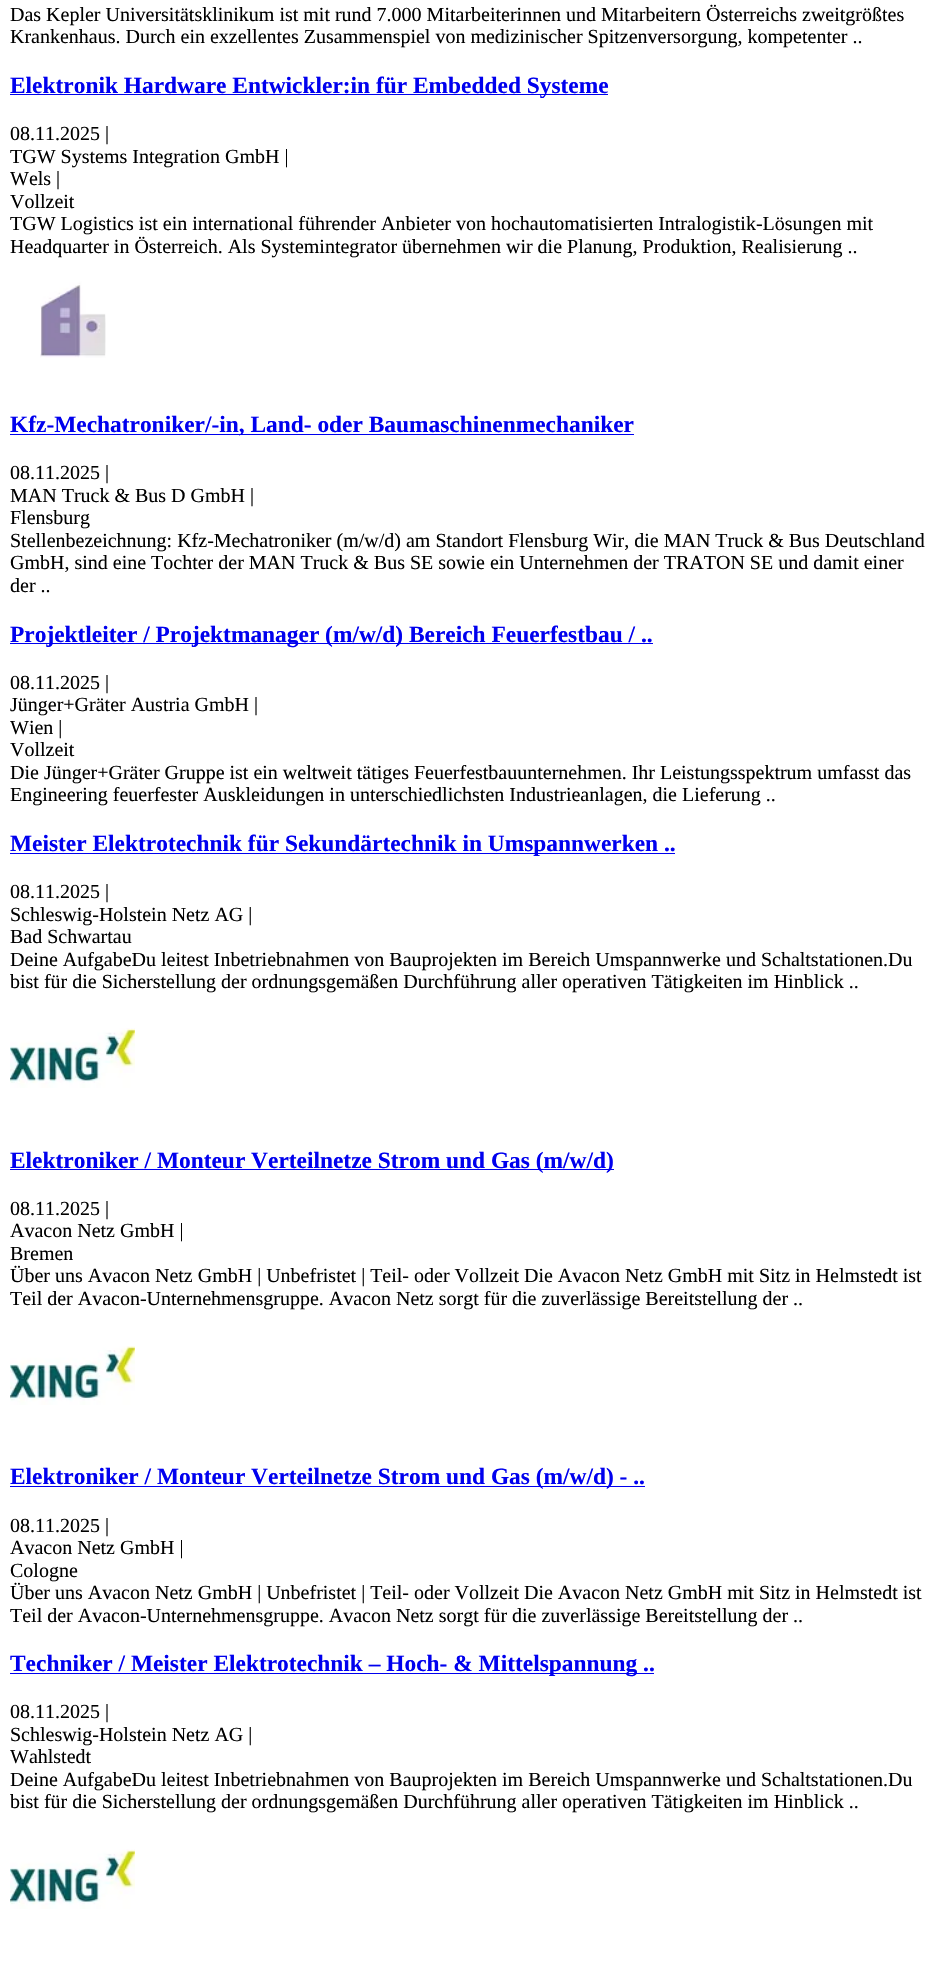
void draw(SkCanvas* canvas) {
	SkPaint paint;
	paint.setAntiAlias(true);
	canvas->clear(0xffffffff);
	SkFont f1(fontMgr->matchFamilyStyle("Liberation Serif", SkFontStyle::Normal()), 20);
	f1.setSubpixel(true);
	paint.setColor(0xff000000);
	canvas->drawString("Das Kepler Universitätsklinikum ist mit rund 7.000 Mitarbeiterinnen und Mitarbeitern Österreichs zweitgrößtes", 10, 21, f1, paint);
	canvas->drawString("Krankenhaus. Durch ein exzellentes Zusammenspiel von medizinischer Spitzenversorgung, kompetenter ..", 10, 43, f1, paint);
	paint.setColor(0xff0000ee);
	canvas->drawRect(SkRect::MakeXYWH(10, 94, 598, 1), paint);
	SkFont f2(fontMgr->matchFamilyStyle("Liberation Serif", SkFontStyle::Bold()), 23.4);
	f2.setSubpixel(true);
	canvas->drawString("Elektronik Hardware Entwickler:in für Embedded Systeme", 10, 93, f2, paint);
	paint.setColor(0xff000000);
	canvas->drawString("08.11.2025 |", 10, 140, f1, paint);
	canvas->drawString("TGW Systems Integration GmbH |", 10, 163, f1, paint);
	canvas->drawString("Wels |", 10, 185, f1, paint);
	canvas->drawString("Vollzeit", 10, 208, f1, paint);
	canvas->drawString("TGW Logistics ist ein international führender Anbieter von hochautomatisierten Intralogistik-Lösungen mit", 10, 230, f1, paint);
	canvas->drawString("Headquarter in Österreich. Als Systemintegrator übernehmen wir die Planung, Produktion, Realisierung ..", 10, 253, f1, paint);
	canvas->drawImageRect(SkImages::DeferredFromEncodedData(SkData::MakeFromFileName("img1.png")), SkRect::MakeXYWH(40, 257, 66, 101), SkSamplingOptions());
	paint.setColor(0xff0000ee);
	canvas->drawRect(SkRect::MakeXYWH(10, 434, 624, 1), paint);
	canvas->drawString("Kfz-Mechatroniker/-in, Land- oder Baumaschinenmechaniker", 10, 432, f2, paint);
	paint.setColor(0xff000000);
	canvas->drawString("08.11.2025 |", 10, 479, f1, paint);
	canvas->drawString("MAN Truck & Bus D GmbH |", 10, 502, f1, paint);
	canvas->drawString("Flensburg", 10, 524, f1, paint);
	canvas->drawString("Stellenbezeichnung: Kfz-Mechatroniker (m/w/d) am Standort Flensburg Wir, die MAN Truck & Bus Deutschland", 10, 547, f1, paint);
	canvas->drawString("GmbH, sind eine Tochter der MAN Truck & Bus SE sowie ein Unternehmen der TRATON SE und damit einer", 10, 569, f1, paint);
	canvas->drawString("der ..", 10, 592, f1, paint);
	paint.setColor(0xff0000ee);
	canvas->drawRect(SkRect::MakeXYWH(10, 643, 643, 1), paint);
	canvas->drawString("Projektleiter / Projektmanager (m/w/d) Bereich Feuerfestbau / ..", 10, 642, f2, paint);
	paint.setColor(0xff000000);
	canvas->drawString("08.11.2025 |", 10, 689, f1, paint);
	canvas->drawString("Jünger+Gräter Austria GmbH |", 10, 711, f1, paint);
	canvas->drawString("Wien |", 10, 734, f1, paint);
	canvas->drawString("Vollzeit", 10, 756, f1, paint);
	canvas->drawString("Die Jünger+Gräter Gruppe ist ein weltweit tätiges Feuerfestbauunternehmen. Ihr Leistungsspektrum umfasst das", 10, 779, f1, paint);
	canvas->drawString("Engineering feuerfester Auskleidungen in unterschiedlichsten Industrieanlagen, die Lieferung ..", 10, 801, f1, paint);
	paint.setColor(0xff0000ee);
	canvas->drawRect(SkRect::MakeXYWH(10, 853, 665, 1), paint);
	canvas->drawString("Meister Elektrotechnik für Sekundärtechnik in Umspannwerken ..", 10, 851, f2, paint);
	paint.setColor(0xff000000);
	canvas->drawString("08.11.2025 |", 10, 898, f1, paint);
	canvas->drawString("Schleswig-Holstein Netz AG |", 10, 921, f1, paint);
	canvas->drawString("Bad Schwartau", 10, 943, f1, paint);
	canvas->drawString("Deine AufgabeDu leitest Inbetriebnahmen von Bauprojekten im Bereich Umspannwerke und Schaltstationen.Du", 10, 966, f1, paint);
	canvas->drawString("bist für die Sicherstellung der ordnungsgemäßen Durchführung aller operativen Tätigkeiten im Hinblick ..", 10, 988, f1, paint);
	canvas->drawImageRect(SkImages::DeferredFromEncodedData(SkData::MakeFromFileName("img2.png")), SkRect::MakeXYWH(10, 1028, 125, 60), SkSamplingOptions());
	paint.setColor(0xff0000ee);
	canvas->drawRect(SkRect::MakeXYWH(10, 1169, 604, 1), paint);
	canvas->drawString("Elektroniker / Monteur Verteilnetze Strom und Gas (m/w/d)", 10, 1168, f2, paint);
	paint.setColor(0xff000000);
	canvas->drawString("08.11.2025 |", 10, 1215, f1, paint);
	canvas->drawString("Avacon Netz GmbH |", 10, 1237, f1, paint);
	canvas->drawString("Bremen", 10, 1260, f1, paint);
	canvas->drawString("Über uns Avacon Netz GmbH | Unbefristet | Teil- oder Vollzeit Die Avacon Netz GmbH mit Sitz in Helmstedt ist", 10, 1282, f1, paint);
	canvas->drawString("Teil der Avacon-Unternehmensgruppe. Avacon Netz sorgt für die zuverlässige Bereitstellung der ..", 10, 1305, f1, paint);
	canvas->drawImageRect(SkImages::DeferredFromEncodedData(SkData::MakeFromFileName("img3.png")), SkRect::MakeXYWH(10, 1346, 125, 59), SkSamplingOptions());
	paint.setColor(0xff0000ee);
	canvas->drawRect(SkRect::MakeXYWH(10, 1486, 635, 1), paint);
	canvas->drawString("Elektroniker / Monteur Verteilnetze Strom und Gas (m/w/d) - ..", 10, 1484, f2, paint);
	paint.setColor(0xff000000);
	canvas->drawString("08.11.2025 |", 10, 1532, f1, paint);
	canvas->drawString("Avacon Netz GmbH |", 10, 1554, f1, paint);
	canvas->drawString("Cologne", 10, 1577, f1, paint);
	canvas->drawString("Über uns Avacon Netz GmbH | Unbefristet | Teil- oder Vollzeit Die Avacon Netz GmbH mit Sitz in Helmstedt ist", 10, 1599, f1, paint);
	canvas->drawString("Teil der Avacon-Unternehmensgruppe. Avacon Netz sorgt für die zuverlässige Bereitstellung der ..", 10, 1622, f1, paint);
	paint.setColor(0xff0000ee);
	canvas->drawRect(SkRect::MakeXYWH(10, 1673, 644, 1), paint);
	canvas->drawString("Techniker / Meister Elektrotechnik – Hoch- & Mittelspannung ..", 10, 1671, f2, paint);
	paint.setColor(0xff000000);
	canvas->drawString("08.11.2025 |", 10, 1718, f1, paint);
	canvas->drawString("Schleswig-Holstein Netz AG |", 10, 1741, f1, paint);
	canvas->drawString("Wahlstedt", 10, 1763, f1, paint);
	canvas->drawString("Deine AufgabeDu leitest Inbetriebnahmen von Bauprojekten im Bereich Umspannwerke und Schaltstationen.Du", 10, 1786, f1, paint);
	canvas->drawString("bist für die Sicherstellung der ordnungsgemäßen Durchführung aller operativen Tätigkeiten im Hinblick ..", 10, 1808, f1, paint);
	canvas->drawImageRect(SkImages::DeferredFromEncodedData(SkData::MakeFromFileName("img4.png")), SkRect::MakeXYWH(10, 1849, 125, 60), SkSamplingOptions());
}
